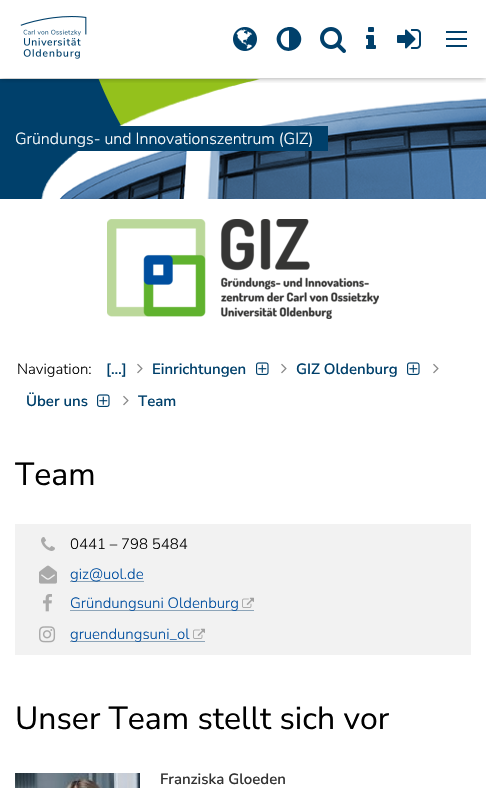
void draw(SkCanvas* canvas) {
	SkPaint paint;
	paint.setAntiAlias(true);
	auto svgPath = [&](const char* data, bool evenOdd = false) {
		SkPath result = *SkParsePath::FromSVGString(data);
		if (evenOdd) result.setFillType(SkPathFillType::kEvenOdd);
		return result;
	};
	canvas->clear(0xffffffff);
	paint.setColor(0xff00406b);
	canvas->drawRect(SkRect::MakeXYWH(0, 79, 122, 120), paint);
	canvas->drawImageRect(SkImages::DeferredFromEncodedData(SkData::MakeFromFileName("img6.png")), SkRect::MakeXYWH(41, 79, 445, 120), SkSamplingOptions());
	canvas->save();
	canvas->clipRect(SkRect::MakeXYWH(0, 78, 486, 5));
	paint.setColor(0x66000000);
	paint.setMaskFilter(SkMaskFilter::MakeBlur(kNormal_SkBlurStyle, 3));
	canvas->drawRect(SkRect::MakeXYWH(0, 0, 486, 78), paint);
	paint.setMaskFilter(nullptr);
	canvas->restore();
	canvas->drawImageRect(SkImages::DeferredFromEncodedData(SkData::MakeFromFileName("img1.png")), SkRect::MakeXYWH(20, 16, 67, 43), SkSamplingOptions());
	canvas->drawImageRect(SkImages::DeferredFromEncodedData(SkData::MakeFromFileName("img2.png")), SkRect::MakeXYWH(233, 27, 24, 24), SkSamplingOptions());
	paint.setColor(0xff00406b);
	canvas->drawPath(svgPath("M289 47.5V30.5C278 30.5 278 47.5 289 47.5ZM299.5 33C307.5 46.5 286.5 58.5 278.5 45C270.5 31.5 291.5 19.5 299.5 33Z"), paint);
	canvas->drawImageRect(SkImages::DeferredFromEncodedData(SkData::MakeFromFileName("img3.png")), SkRect::MakeXYWH(320, 27, 26, 26), SkSamplingOptions());
	canvas->drawImageRect(SkImages::DeferredFromEncodedData(SkData::MakeFromFileName("img4.png")), SkRect::MakeXYWH(366, 27, 10, 22), SkSamplingOptions());
	canvas->drawImageRect(SkImages::DeferredFromEncodedData(SkData::MakeFromFileName("img5.png")), SkRect::MakeXYWH(397, 29, 24, 20), SkSamplingOptions());
	canvas->drawRect(SkRect::MakeXYWH(446, 38, 21, 2), paint);
	canvas->drawRect(SkRect::MakeXYWH(446, 31, 21, 2), paint);
	canvas->drawRect(SkRect::MakeXYWH(446, 45, 21, 2), paint);
	canvas->drawRect(SkRect::MakeXYWH(76, 126, 252, 25), paint);
	SkFont f1(fontMgr->matchFamilyStyle("Nunito Sans", SkFontStyle(300, SkFontStyle::kNormal_Width, SkFontStyle::kUpright_Slant)), 16);
	f1.setSubpixel(true);
	paint.setColor(0xffffffff);
	canvas->drawString("Gründungs- und Innovationszentrum (GIZ)", 15, 144, f1, paint);
	canvas->drawImageRect(SkImages::DeferredFromEncodedData(SkData::MakeFromFileName("img7.png")), SkRect::MakeXYWH(107, 219, 272, 100), SkSamplingOptions());
	SkFont f2(fontMgr->matchFamilyStyle("Nunito Sans", SkFontStyle(300, SkFontStyle::kNormal_Width, SkFontStyle::kUpright_Slant)), 15);
	f2.setSubpixel(true);
	paint.setColor(0xff000000);
	canvas->drawString("Navigation:", 17, 374, f2, paint);
	SkFont f3(fontMgr->matchFamilyStyle("Nunito Sans", SkFontStyle(600, SkFontStyle::kNormal_Width, SkFontStyle::kUpright_Slant)), 15);
	f3.setSubpixel(true);
	paint.setColor(0xff00406b);
	canvas->drawString("[…]", 106, 374, f3, paint);
	canvas->drawImageRect(SkImages::DeferredFromEncodedData(SkData::MakeFromFileName("img8.png")), SkRect::MakeXYWH(137, 363, 6, 11), SkSamplingOptions());
	canvas->drawString("Einrichtungen", 152, 374, f3, paint);
	canvas->drawImageRect(SkImages::DeferredFromEncodedData(SkData::MakeFromFileName("img9.png")), SkRect::MakeXYWH(256, 362, 13, 13), SkSamplingOptions());
	canvas->drawImageRect(SkImages::DeferredFromEncodedData(SkData::MakeFromFileName("img8.png")), SkRect::MakeXYWH(281, 363, 6, 11), SkSamplingOptions());
	canvas->drawString("GIZ Oldenburg", 296, 374, f3, paint);
	canvas->drawImageRect(SkImages::DeferredFromEncodedData(SkData::MakeFromFileName("img9.png")), SkRect::MakeXYWH(407, 362, 13, 13), SkSamplingOptions());
	canvas->drawImageRect(SkImages::DeferredFromEncodedData(SkData::MakeFromFileName("img8.png")), SkRect::MakeXYWH(433, 363, 6, 11), SkSamplingOptions());
	canvas->drawString("Über uns", 26, 406, f3, paint);
	canvas->drawImageRect(SkImages::DeferredFromEncodedData(SkData::MakeFromFileName("img9.png")), SkRect::MakeXYWH(97, 394, 13, 13), SkSamplingOptions());
	canvas->drawImageRect(SkImages::DeferredFromEncodedData(SkData::MakeFromFileName("img8.png")), SkRect::MakeXYWH(123, 395, 6, 11), SkSamplingOptions());
	canvas->drawString("Team", 138, 406, f3, paint);
	SkFont f4(fontMgr->matchFamilyStyle("Nunito Sans", SkFontStyle::Normal()), 32);
	f4.setSubpixel(true);
	paint.setColor(0xff000000);
	canvas->drawString("Team", 15, 485, f4, paint);
	paint.setColor(0xfff2f2f2);
	canvas->drawRect(SkRect::MakeXYWH(15, 524, 456, 131), paint);
	canvas->drawImageRect(SkImages::DeferredFromEncodedData(SkData::MakeFromFileName("img10.png")), SkRect::MakeXYWH(41, 537, 14, 14), SkSamplingOptions());
	paint.setColor(0xff000000);
	canvas->drawString("0441 – 798 5484", 70, 549, f2, paint);
	canvas->drawImageRect(SkImages::DeferredFromEncodedData(SkData::MakeFromFileName("img11.png")), SkRect::MakeXYWH(39, 565, 18, 19), SkSamplingOptions());
	paint.setColor(0xff8ea5b8);
	canvas->drawRect(SkRect::MakeXYWH(70, 581, 74, 1), paint);
	paint.setColor(0xff004e9f);
	canvas->drawString("giz@uol.de", 70, 579, f2, paint);
	canvas->drawImageRect(SkImages::DeferredFromEncodedData(SkData::MakeFromFileName("img12.png")), SkRect::MakeXYWH(43, 594, 9, 18), SkSamplingOptions());
	paint.setColor(0xff8ea5b8);
	canvas->drawRect(SkRect::MakeXYWH(70, 610, 184, 1), paint);
	paint.setColor(0xff004e9f);
	canvas->drawString("Gründungsuni Oldenburg", 70, 608, f2, paint);
	canvas->drawImageRect(SkImages::DeferredFromEncodedData(SkData::MakeFromFileName("img13.png")), SkRect::MakeXYWH(242, 597, 12, 11), SkSamplingOptions());
	canvas->drawImageRect(SkImages::DeferredFromEncodedData(SkData::MakeFromFileName("img14.png")), SkRect::MakeXYWH(39, 626, 17, 17), SkSamplingOptions());
	paint.setColor(0xff8ea5b8);
	canvas->drawRect(SkRect::MakeXYWH(70, 641, 135, 1), paint);
	paint.setColor(0xff004e9f);
	canvas->drawString("gruendungsuni_ol", 70, 639, f2, paint);
	canvas->drawImageRect(SkImages::DeferredFromEncodedData(SkData::MakeFromFileName("img13.png")), SkRect::MakeXYWH(193, 628, 12, 11), SkSamplingOptions());
	paint.setColor(0xff000000);
	canvas->drawString("Unser Team stellt sich vor", 15, 729, f4, paint);
	canvas->drawImageRect(SkImages::DeferredFromEncodedData(SkData::MakeFromFileName("img15.png")), SkRect::MakeXYWH(15, 773, 125, 15), SkSamplingOptions());
	paint.setColor(0xff333333);
	canvas->drawString("Franziska Gloeden", 160, 784, f3, paint);
}
